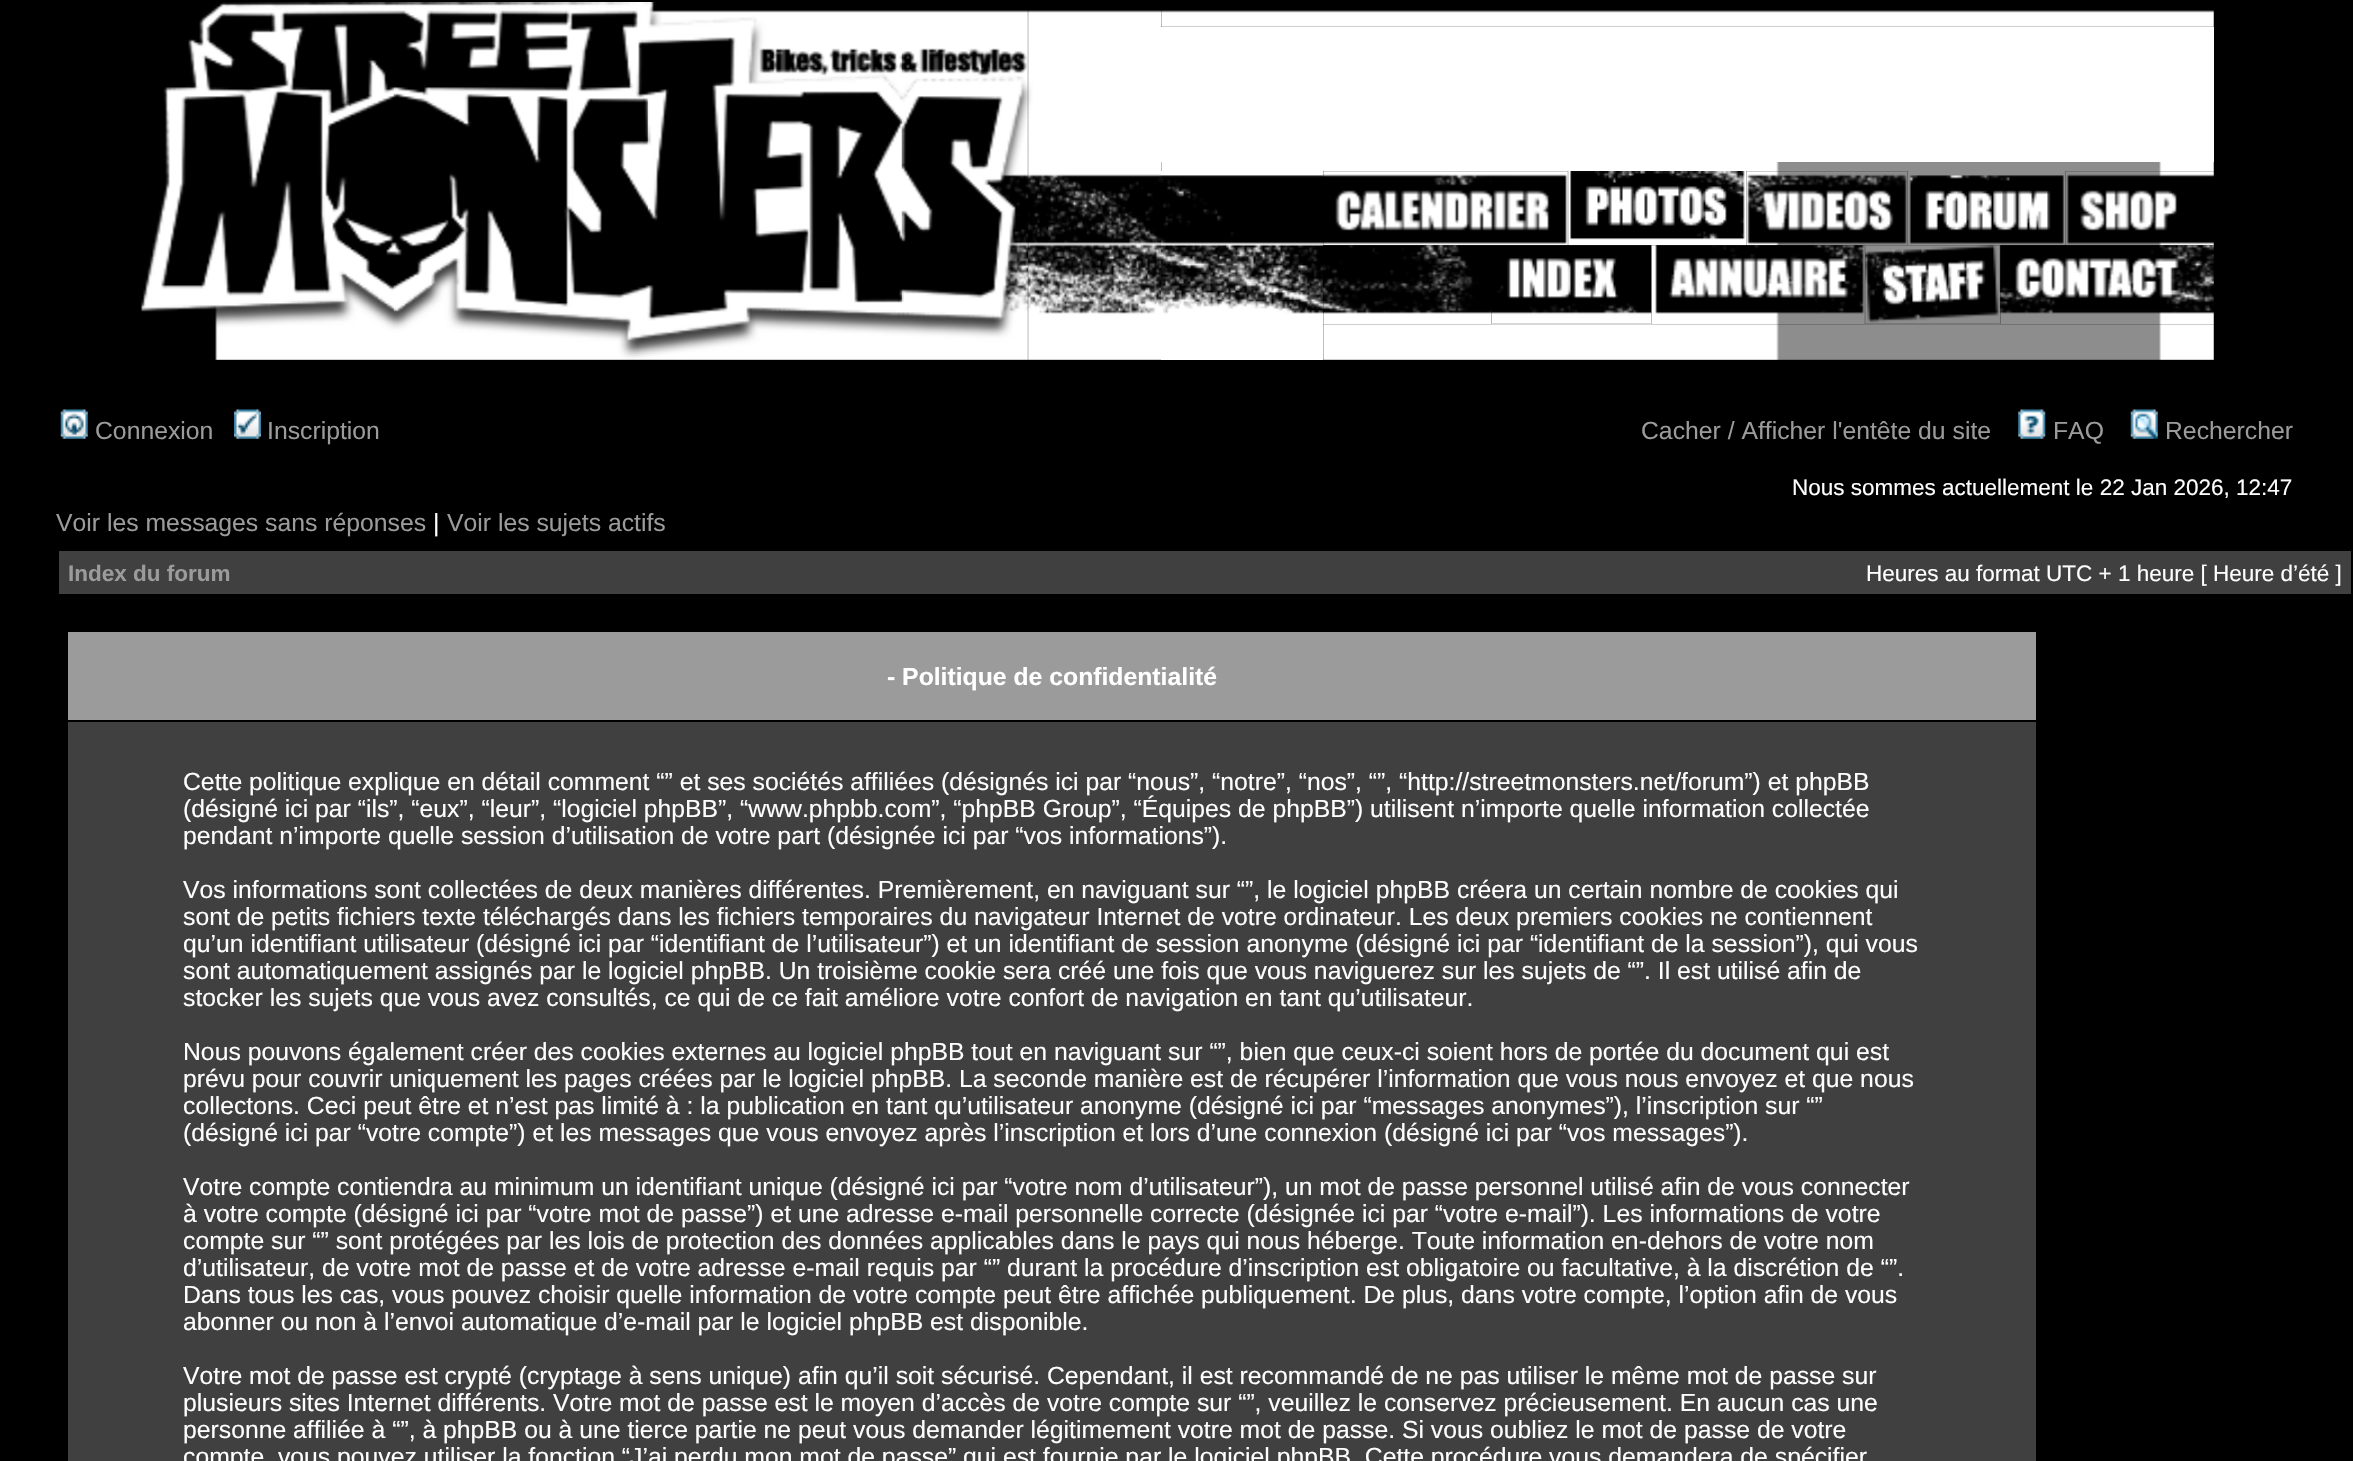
void draw(SkCanvas* canvas) {
	SkPaint paint;
	paint.setAntiAlias(true);
	canvas->clear(0xff000000);
	canvas->drawImageRect(SkImages::DeferredFromEncodedData(SkData::MakeFromFileName("img1.png")), SkRect::MakeXYWH(141, 2, 888, 358), SkSamplingOptions());
	canvas->drawImageRect(SkImages::DeferredFromEncodedData(SkData::MakeFromFileName("img2.png")), SkRect::MakeXYWH(1028, 10, 133, 350), SkSamplingOptions());
	canvas->drawImageRect(SkImages::DeferredFromEncodedData(SkData::MakeFromFileName("img3.png")), SkRect::MakeXYWH(1161, 10, 1053, 17), SkSamplingOptions());
	paint.setColor(0xffffffff);
	canvas->drawRect(SkRect::MakeXYWH(1161, 27, 1053, 135), paint);
	canvas->drawImageRect(SkImages::DeferredFromEncodedData(SkData::MakeFromFileName("img4.png")), SkRect::MakeXYWH(1161, 162, 1053, 9), SkSamplingOptions());
	canvas->drawImageRect(SkImages::DeferredFromEncodedData(SkData::MakeFromFileName("img5.png")), SkRect::MakeXYWH(1161, 171, 162, 189), SkSamplingOptions());
	canvas->drawImageRect(SkImages::DeferredFromEncodedData(SkData::MakeFromFileName("img6.png")), SkRect::MakeXYWH(1322, 171, 247, 75), SkSamplingOptions());
	canvas->drawImageRect(SkImages::DeferredFromEncodedData(SkData::MakeFromFileName("img7.png")), SkRect::MakeXYWH(1568, 171, 178, 75), SkSamplingOptions());
	canvas->drawImageRect(SkImages::DeferredFromEncodedData(SkData::MakeFromFileName("img8.png")), SkRect::MakeXYWH(1745, 171, 164, 75), SkSamplingOptions());
	canvas->drawImageRect(SkImages::DeferredFromEncodedData(SkData::MakeFromFileName("img9.png")), SkRect::MakeXYWH(1908, 171, 158, 75), SkSamplingOptions());
	canvas->drawImageRect(SkImages::DeferredFromEncodedData(SkData::MakeFromFileName("img10.png")), SkRect::MakeXYWH(2065, 170, 149, 76), SkSamplingOptions());
	canvas->drawImageRect(SkImages::DeferredFromEncodedData(SkData::MakeFromFileName("img11.png")), SkRect::MakeXYWH(1322, 245, 171, 79), SkSamplingOptions());
	canvas->drawImageRect(SkImages::DeferredFromEncodedData(SkData::MakeFromFileName("img12.png")), SkRect::MakeXYWH(1491, 245, 161, 80), SkSamplingOptions());
	canvas->drawImageRect(SkImages::DeferredFromEncodedData(SkData::MakeFromFileName("img13.png")), SkRect::MakeXYWH(1651, 245, 215, 79), SkSamplingOptions());
	canvas->drawImageRect(SkImages::DeferredFromEncodedData(SkData::MakeFromFileName("img14.png")), SkRect::MakeXYWH(1865, 245, 136, 80), SkSamplingOptions());
	canvas->drawImageRect(SkImages::DeferredFromEncodedData(SkData::MakeFromFileName("img15.png")), SkRect::MakeXYWH(1999, 245, 215, 79), SkSamplingOptions());
	canvas->drawImageRect(SkImages::DeferredFromEncodedData(SkData::MakeFromFileName("img16.png")), SkRect::MakeXYWH(1323, 323, 891, 37), SkSamplingOptions());
	canvas->drawImageRect(SkImages::DeferredFromEncodedData(SkData::MakeFromFileName("img17.png")), SkRect::MakeXYWH(60, 409, 28, 30), SkSamplingOptions());
	SkFont f1(fontMgr->matchFamilyStyle("Liberation Sans", SkFontStyle::Normal()), 24.75);
	f1.setSubpixel(true);
	paint.setColor(0xff9b9b9b);
	canvas->drawString("Connexion", 95, 439, f1, paint);
	canvas->drawImageRect(SkImages::DeferredFromEncodedData(SkData::MakeFromFileName("img18.png")), SkRect::MakeXYWH(234, 409, 27, 30), SkSamplingOptions());
	canvas->drawString("Inscription", 267, 439, f1, paint);
	canvas->drawString("Cacher / Afficher l'entête du site", 1641, 439, f1, paint);
	canvas->drawImageRect(SkImages::DeferredFromEncodedData(SkData::MakeFromFileName("img19.png")), SkRect::MakeXYWH(2018, 409, 28, 30), SkSamplingOptions());
	canvas->drawString("FAQ", 2053, 439, f1, paint);
	canvas->drawImageRect(SkImages::DeferredFromEncodedData(SkData::MakeFromFileName("img20.png")), SkRect::MakeXYWH(2130, 409, 28, 30), SkSamplingOptions());
	canvas->drawString("Rechercher", 2165, 439, f1, paint);
	SkFont f2(fontMgr->matchFamilyStyle("Liberation Sans", SkFontStyle::Normal()), 22.5);
	f2.setSubpixel(true);
	paint.setColor(0xffffffff);
	canvas->drawString("Nous sommes actuellement le 22 Jan 2026, 12:47", 1792, 495, f2, paint);
	paint.setColor(0xff9b9b9b);
	canvas->drawString("Voir les messages sans réponses", 56, 531, f1, paint);
	paint.setColor(0xffffffff);
	canvas->drawString("|", 433, 531, f1, paint);
	paint.setColor(0xff9b9b9b);
	canvas->drawString("Voir les sujets actifs", 447, 531, f1, paint);
	paint.setColor(0xff404040);
	canvas->drawRect(SkRect::MakeXYWH(59, 551, 2292, 43), paint);
	SkFont f3(fontMgr->matchFamilyStyle("Liberation Sans", SkFontStyle::Bold()), 22.5);
	f3.setSubpixel(true);
	paint.setColor(0xff9b9b9b);
	canvas->drawString("Index du forum", 68, 581, f3, paint);
	paint.setColor(0xffffffff);
	canvas->drawString("Heures au format UTC + 1 heure [ Heure d’été ]", 1866, 581, f2, paint);
	paint.setColor(0xff9b9b9b);
	canvas->drawRect(SkRect::MakeXYWH(68, 632, 1968, 88), paint);
	SkFont f4(fontMgr->matchFamilyStyle("Liberation Sans", SkFontStyle::Bold()), 24.75);
	f4.setSubpixel(true);
	paint.setColor(0xffffffff);
	canvas->drawString("- Politique de confidentialité", 887, 685, f4, paint);
	paint.setColor(0xff404040);
	canvas->drawRect(SkRect::MakeXYWH(68, 722, 1968, 739), paint);
	paint.setColor(0xffffffff);
	canvas->drawString("Cette politique explique en détail comment “” et ses sociétés affiliées (désignés ici par “nous”, “notre”, “nos”, “”, “http://streetmonsters.net/forum”) et phpBB", 183, 790, f1, paint);
	canvas->drawString("(désigné ici par “ils”, “eux”, “leur”, “logiciel phpBB”, “www.phpbb.com”, “phpBB Group”, “Équipes de phpBB”) utilisent n’importe quelle information collectée", 183, 817, f1, paint);
	canvas->drawString("pendant n’importe quelle session d’utilisation de votre part (désignée ici par “vos informations”).", 183, 844, f1, paint);
	canvas->drawString("Vos informations sont collectées de deux manières différentes. Premièrement, en naviguant sur “”, le logiciel phpBB créera un certain nombre de cookies qui", 183, 898, f1, paint);
	canvas->drawString("sont de petits fichiers texte téléchargés dans les fichiers temporaires du navigateur Internet de votre ordinateur. Les deux premiers cookies ne contiennent", 183, 925, f1, paint);
	canvas->drawString("qu’un identifiant utilisateur (désigné ici par “identifiant de l’utilisateur”) et un identifiant de session anonyme (désigné ici par “identifiant de la session”), qui vous", 183, 952, f1, paint);
	canvas->drawString("sont automatiquement assignés par le logiciel phpBB. Un troisième cookie sera créé une fois que vous naviguerez sur les sujets de “”. Il est utilisé afin de", 183, 979, f1, paint);
	canvas->drawString("stocker les sujets que vous avez consultés, ce qui de ce fait améliore votre confort de navigation en tant qu’utilisateur.", 183, 1006, f1, paint);
	canvas->drawString("Nous pouvons également créer des cookies externes au logiciel phpBB tout en naviguant sur “”, bien que ceux-ci soient hors de portée du document qui est", 183, 1060, f1, paint);
	canvas->drawString("prévu pour couvrir uniquement les pages créées par le logiciel phpBB. La seconde manière est de récupérer l’information que vous nous envoyez et que nous", 183, 1087, f1, paint);
	canvas->drawString("collectons. Ceci peut être et n’est pas limité à : la publication en tant qu’utilisateur anonyme (désigné ici par “messages anonymes”), l’inscription sur “”", 183, 1114, f1, paint);
	canvas->drawString("(désigné ici par “votre compte”) et les messages que vous envoyez après l’inscription et lors d’une connexion (désigné ici par “vos messages”).", 183, 1141, f1, paint);
	canvas->drawString("Votre compte contiendra au minimum un identifiant unique (désigné ici par “votre nom d’utilisateur”), un mot de passe personnel utilisé afin de vous connecter", 183, 1195, f1, paint);
	canvas->drawString("à votre compte (désigné ici par “votre mot de passe”) et une adresse e-mail personnelle correcte (désignée ici par “votre e-mail”). Les informations de votre", 183, 1222, f1, paint);
	canvas->drawString("compte sur “” sont protégées par les lois de protection des données applicables dans le pays qui nous héberge. Toute information en-dehors de votre nom", 183, 1249, f1, paint);
	canvas->drawString("d’utilisateur, de votre mot de passe et de votre adresse e-mail requis par “” durant la procédure d’inscription est obligatoire ou facultative, à la discrétion de “”.", 183, 1276, f1, paint);
	canvas->drawString("Dans tous les cas, vous pouvez choisir quelle information de votre compte peut être affichée publiquement. De plus, dans votre compte, l’option afin de vous", 183, 1303, f1, paint);
	canvas->drawString("abonner ou non à l’envoi automatique d’e-mail par le logiciel phpBB est disponible.", 183, 1330, f1, paint);
	canvas->drawString("Votre mot de passe est crypté (cryptage à sens unique) afin qu’il soit sécurisé. Cependant, il est recommandé de ne pas utiliser le même mot de passe sur", 183, 1384, f1, paint);
	canvas->drawString("plusieurs sites Internet différents. Votre mot de passe est le moyen d’accès de votre compte sur “”, veuillez le conservez précieusement. En aucun cas une", 183, 1411, f1, paint);
	canvas->drawString("personne affiliée à “”, à phpBB ou à une tierce partie ne peut vous demander légitimement votre mot de passe. Si vous oubliez le mot de passe de votre", 183, 1438, f1, paint);
	canvas->drawString("compte, vous pouvez utiliser la fonction “J’ai perdu mon mot de passe” qui est fournie par le logiciel phpBB. Cette procédure vous demandera de spécifier", 183, 1465, f1, paint);
}
